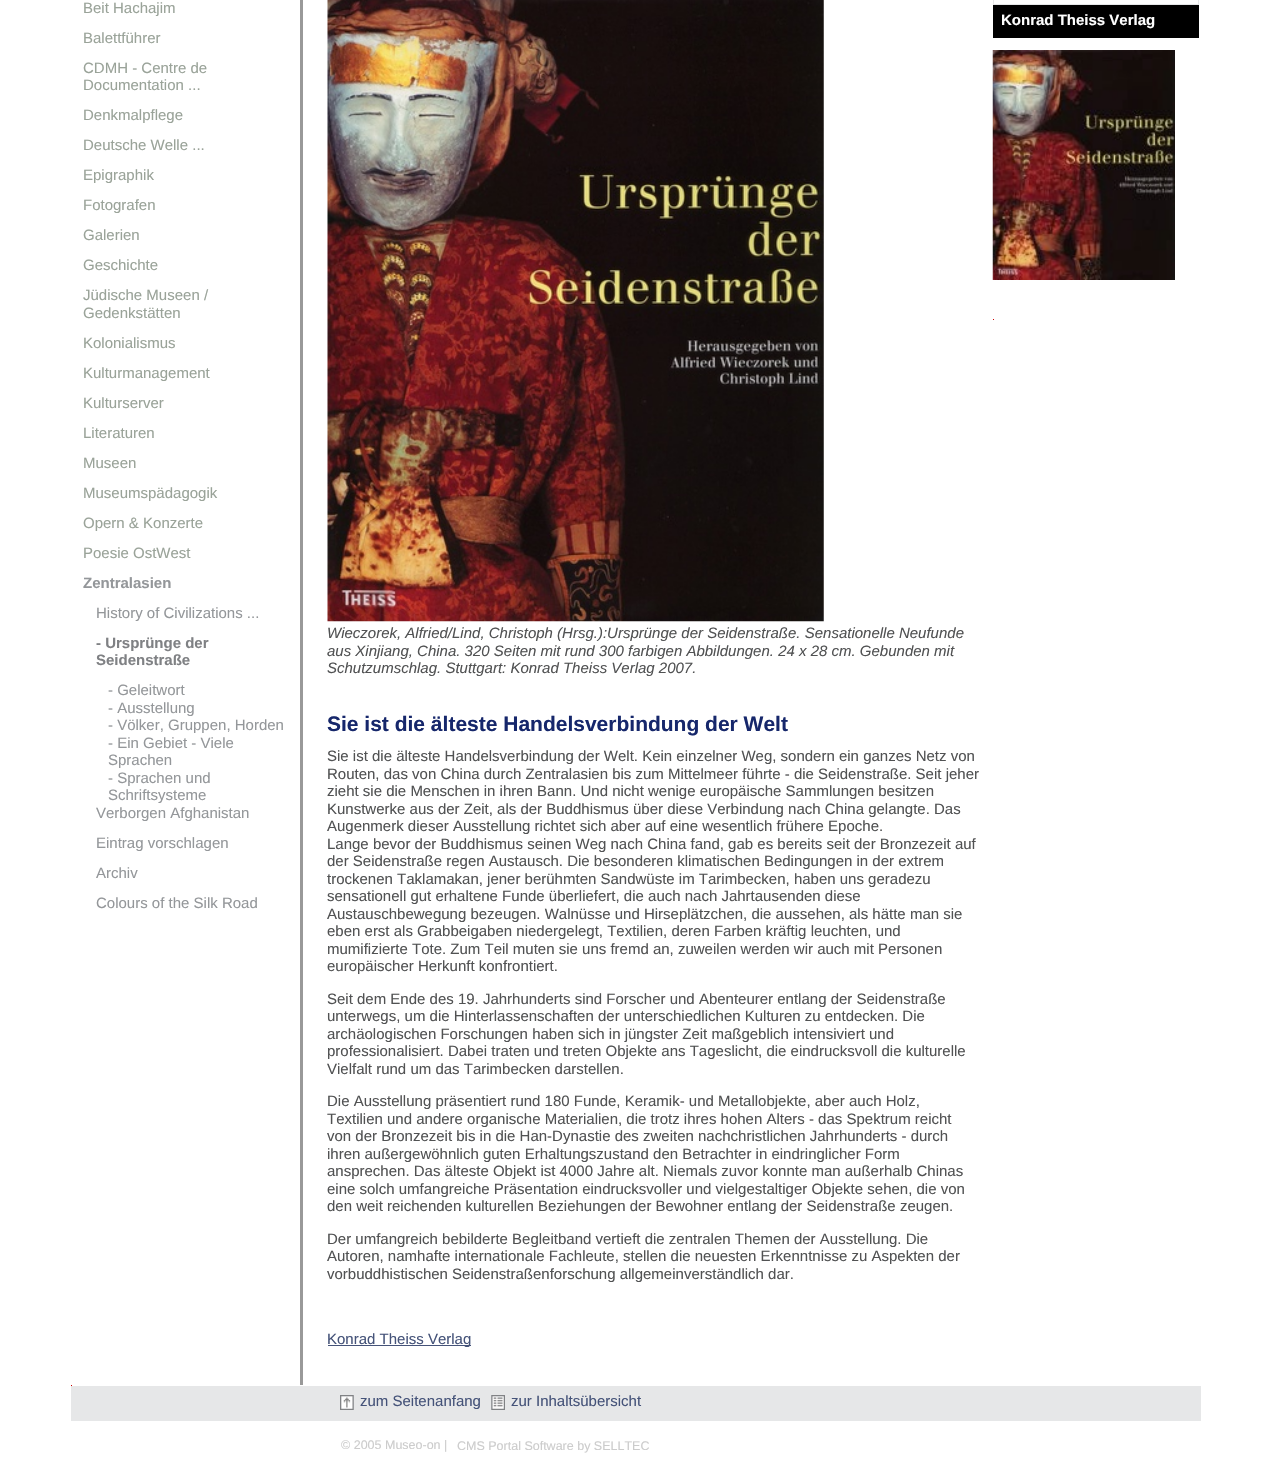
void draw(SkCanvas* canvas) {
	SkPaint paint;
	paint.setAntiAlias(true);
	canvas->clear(0xffffffff);
	SkFont f1(fontMgr->matchFamilyStyle("Liberation Sans", SkFontStyle::Normal()), 15);
	f1.setSubpixel(true);
	paint.setColor(0xff9aa399);
	canvas->drawString("Beit Hachajim", 83, 13, f1, paint);
	canvas->drawString("Balettführer", 83, 43, f1, paint);
	canvas->drawString("CDMH - Centre de", 83, 73, f1, paint);
	canvas->drawString("Documentation ...", 83, 90, f1, paint);
	canvas->drawString("Denkmalpflege", 83, 120, f1, paint);
	canvas->drawString("Deutsche Welle ...", 83, 150, f1, paint);
	canvas->drawString("Epigraphik", 83, 180, f1, paint);
	canvas->drawString("Fotografen", 83, 210, f1, paint);
	canvas->drawString("Galerien", 83, 240, f1, paint);
	canvas->drawString("Geschichte", 83, 270, f1, paint);
	canvas->drawString("Jüdische Museen /", 83, 300, f1, paint);
	canvas->drawString("Gedenkstätten", 83, 318, f1, paint);
	canvas->drawString("Kolonialismus", 83, 348, f1, paint);
	canvas->drawString("Kulturmanagement", 83, 378, f1, paint);
	canvas->drawString("Kulturserver", 83, 408, f1, paint);
	canvas->drawString("Literaturen", 83, 438, f1, paint);
	canvas->drawString("Museen", 83, 468, f1, paint);
	canvas->drawString("Museumspädagogik", 83, 498, f1, paint);
	canvas->drawString("Opern & Konzerte", 83, 528, f1, paint);
	canvas->drawString("Poesie OstWest", 83, 558, f1, paint);
	SkFont f2(fontMgr->matchFamilyStyle("Liberation Sans", SkFontStyle::Bold()), 15);
	f2.setSubpixel(true);
	paint.setColor(0xff94979a);
	canvas->drawString("Zentralasien", 83, 588, f2, paint);
	canvas->drawString("History of Civilizations ...", 96, 618, f1, paint);
	paint.setColor(0xff7f8184);
	canvas->drawString("- Ursprünge der", 96, 648, f2, paint);
	canvas->drawString("Seidenstraße", 96, 665, f2, paint);
	paint.setColor(0xff94979a);
	canvas->drawString("- Geleitwort", 108, 695, f1, paint);
	canvas->drawString("- Ausstellung", 108, 713, f1, paint);
	canvas->drawString("- Völker, Gruppen, Horden", 108, 730, f1, paint);
	canvas->drawString("- Ein Gebiet - Viele", 108, 748, f1, paint);
	canvas->drawString("Sprachen", 108, 765, f1, paint);
	canvas->drawString("- Sprachen und", 108, 783, f1, paint);
	canvas->drawString("Schriftsysteme", 108, 800, f1, paint);
	canvas->drawString("Verborgen Afghanistan", 96, 818, f1, paint);
	canvas->drawString("Eintrag vorschlagen", 96, 848, f1, paint);
	canvas->drawString("Archiv", 96, 878, f1, paint);
	canvas->drawString("Colours of the Silk Road", 96, 908, f1, paint);
	paint.setStroke(true);
	paint.setStrokeWidth(1);
	paint.setColor(0xffe6e7e8);
	canvas->drawRect(SkRect::MakeXYWH(993.5, -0.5, 205, 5), paint);
	paint.setStroke(false);
	paint.setColor(0xff000000);
	canvas->drawRect(SkRect::MakeXYWH(993, 5, 206, 33), paint);
	paint.setColor(0xffffffff);
	canvas->drawString("Konrad Theiss Verlag", 1001, 25, f2, paint);
	canvas->drawImageRect(SkImages::DeferredFromEncodedData(SkData::MakeFromFileName("img1.png")), SkRect::MakeXYWH(992, 50, 183, 230), SkSamplingOptions());
	paint.setColor(0xffcc0000);
	canvas->drawRect(SkRect::MakeXYWH(993, 319, 1, 1), paint);
	paint.setColor(0xff999999);
	canvas->drawRect(SkRect::MakeXYWH(300, 0, 3, 1385), paint);
	canvas->drawImageRect(SkImages::DeferredFromEncodedData(SkData::MakeFromFileName("img2.png")), SkRect::MakeXYWH(327, 0, 497, 622), SkSamplingOptions());
	SkFont f3(fontMgr->matchFamilyStyle("Liberation Sans", SkFontStyle::Italic()), 15);
	f3.setSubpixel(true);
	paint.setColor(0xff515253);
	canvas->drawString("Wieczorek, Alfried/Lind, Christoph (Hrsg.):Ursprünge der Seidenstraße. Sensationelle Neufunde", 327, 638, f3, paint);
	canvas->drawString("aus Xinjiang, China. 320 Seiten mit rund 300 farbigen Abbildungen. 24 x 28 cm. Gebunden mit", 327, 656, f3, paint);
	canvas->drawString("Schutzumschlag. Stuttgart: Konrad Theiss Verlag 2007.", 327, 673, f3, paint);
	SkFont f4(fontMgr->matchFamilyStyle("Liberation Sans", SkFontStyle::Bold()), 21);
	f4.setSubpixel(true);
	paint.setColor(0xff16276b);
	canvas->drawString("Sie ist die älteste Handelsverbindung der Welt", 327, 731, f4, paint);
	paint.setColor(0xff515253);
	canvas->drawString("Sie ist die älteste Handelsverbindung der Welt. Kein einzelner Weg, sondern ein ganzes Netz von", 327, 761, f1, paint);
	canvas->drawString("Routen, das von China durch Zentralasien bis zum Mittelmeer führte - die Seidenstraße. Seit jeher", 327, 779, f1, paint);
	canvas->drawString("zieht sie die Menschen in ihren Bann. Und nicht wenige europäische Sammlungen besitzen", 327, 796, f1, paint);
	canvas->drawString("Kunstwerke aus der Zeit, als der Buddhismus über diese Verbindung nach China gelangte. Das", 327, 814, f1, paint);
	canvas->drawString("Augenmerk dieser Ausstellung richtet sich aber auf eine wesentlich frühere Epoche.", 327, 831, f1, paint);
	canvas->drawString("Lange bevor der Buddhismus seinen Weg nach China fand, gab es bereits seit der Bronzezeit auf", 327, 849, f1, paint);
	canvas->drawString("der Seidenstraße regen Austausch. Die besonderen klimatischen Bedingungen in der extrem", 327, 866, f1, paint);
	canvas->drawString("trockenen Taklamakan, jener berühmten Sandwüste im Tarimbecken, haben uns geradezu", 327, 884, f1, paint);
	canvas->drawString("sensationell gut erhaltene Funde überliefert, die auch nach Jahrtausenden diese", 327, 901, f1, paint);
	canvas->drawString("Austauschbewegung bezeugen. Walnüsse und Hirseplätzchen, die aussehen, als hätte man sie", 327, 919, f1, paint);
	canvas->drawString("eben erst als Grabbeigaben niedergelegt, Textilien, deren Farben kräftig leuchten, und", 327, 936, f1, paint);
	canvas->drawString("mumifizierte Tote. Zum Teil muten sie uns fremd an, zuweilen werden wir auch mit Personen", 327, 954, f1, paint);
	canvas->drawString("europäischer Herkunft konfrontiert.", 327, 971, f1, paint);
	canvas->drawString("Seit dem Ende des 19. Jahrhunderts sind Forscher und Abenteurer entlang der Seidenstraße", 327, 1004, f1, paint);
	canvas->drawString("unterwegs, um die Hinterlassenschaften der unterschiedlichen Kulturen zu entdecken. Die", 327, 1021, f1, paint);
	canvas->drawString("archäologischen Forschungen haben sich in jüngster Zeit maßgeblich intensiviert und", 327, 1039, f1, paint);
	canvas->drawString("professionalisiert. Dabei traten und treten Objekte ans Tageslicht, die eindrucksvoll die kulturelle", 327, 1056, f1, paint);
	canvas->drawString("Vielfalt rund um das Tarimbecken darstellen.", 327, 1074, f1, paint);
	canvas->drawString("Die Ausstellung präsentiert rund 180 Funde, Keramik- und Metallobjekte, aber auch Holz,", 327, 1106, f1, paint);
	canvas->drawString("Textilien und andere organische Materialien, die trotz ihres hohen Alters - das Spektrum reicht", 327, 1124, f1, paint);
	canvas->drawString("von der Bronzezeit bis in die Han-Dynastie des zweiten nachchristlichen Jahrhunderts - durch", 327, 1141, f1, paint);
	canvas->drawString("ihren außergewöhnlich guten Erhaltungszustand den Betrachter in eindringlicher Form", 327, 1159, f1, paint);
	canvas->drawString("ansprechen. Das älteste Objekt ist 4000 Jahre alt. Niemals zuvor konnte man außerhalb Chinas", 327, 1176, f1, paint);
	canvas->drawString("eine solch umfangreiche Präsentation eindrucksvoller und vielgestaltiger Objekte sehen, die von", 327, 1194, f1, paint);
	canvas->drawString("den weit reichenden kulturellen Beziehungen der Bewohner entlang der Seidenstraße zeugen.", 327, 1211, f1, paint);
	canvas->drawString("Der umfangreich bebilderte Begleitband vertieft die zentralen Themen der Ausstellung. Die", 327, 1244, f1, paint);
	canvas->drawString("Autoren, namhafte internationale Fachleute, stellen die neuesten Erkenntnisse zu Aspekten der", 327, 1261, f1, paint);
	canvas->drawString("vorbuddhistischen Seidenstraßenforschung allgemeinverständlich dar.", 327, 1279, f1, paint);
	paint.setColor(0xff455379);
	canvas->drawRect(SkRect::MakeXYWH(328, 1345, 143, 1), paint);
	canvas->drawString("Konrad Theiss Verlag", 327, 1344, f1, paint);
	paint.setColor(0xffcc0000);
	canvas->drawRect(SkRect::MakeXYWH(71, 1385, 1, 1), paint);
	paint.setColor(0xffe6e7e8);
	canvas->drawRect(SkRect::MakeXYWH(71, 1386, 1130, 35), paint);
	canvas->drawImageRect(SkImages::DeferredFromEncodedData(SkData::MakeFromFileName("img3.png")), SkRect::MakeXYWH(340, 1395, 14, 15), SkSamplingOptions());
	paint.setColor(0xff455379);
	canvas->drawString("zum Seitenanfang", 360, 1406, f1, paint);
	canvas->drawImageRect(SkImages::DeferredFromEncodedData(SkData::MakeFromFileName("img4.png")), SkRect::MakeXYWH(491, 1395, 14, 15), SkSamplingOptions());
	canvas->drawString("zur Inhaltsübersicht", 511, 1406, f1, paint);
	SkFont f5(fontMgr->matchFamilyStyle("Liberation Sans", SkFontStyle::Normal()), 12.5);
	f5.setSubpixel(true);
	paint.setColor(0xffcccccc);
	canvas->drawString("© 2005 Museo-on |", 341, 1449, f5, paint);
	canvas->drawString("CMS Portal Software by SELLTEC", 457, 1450, f5, paint);
}
